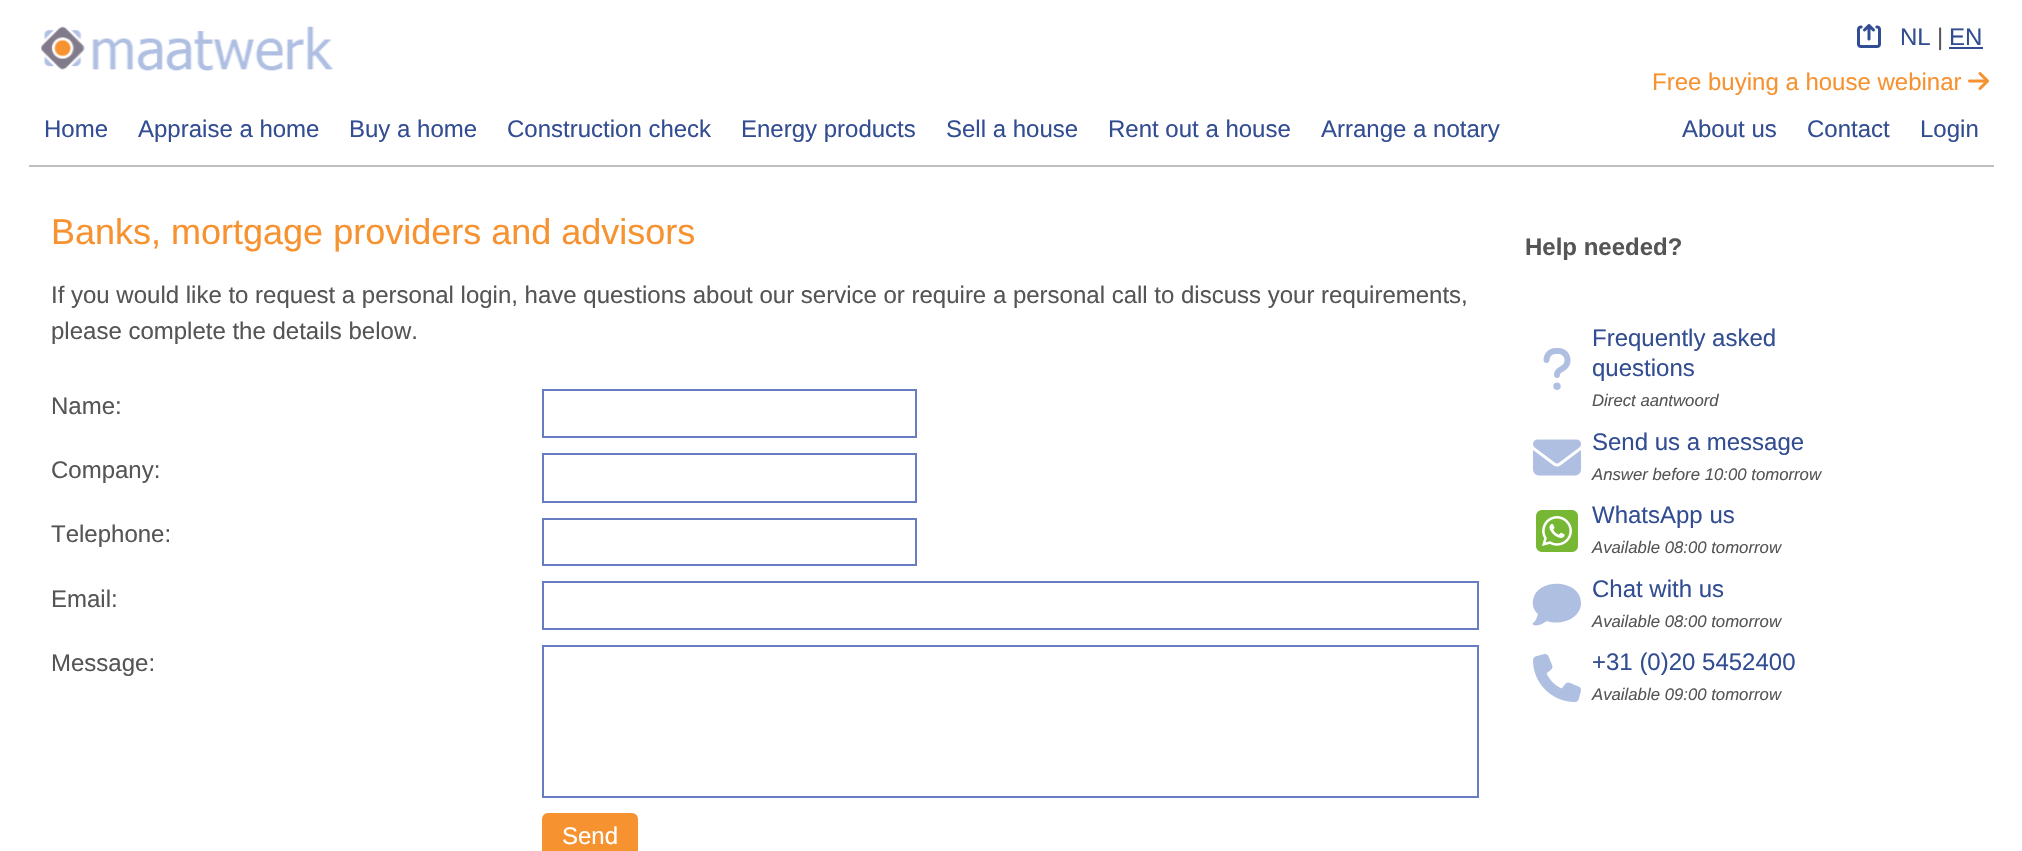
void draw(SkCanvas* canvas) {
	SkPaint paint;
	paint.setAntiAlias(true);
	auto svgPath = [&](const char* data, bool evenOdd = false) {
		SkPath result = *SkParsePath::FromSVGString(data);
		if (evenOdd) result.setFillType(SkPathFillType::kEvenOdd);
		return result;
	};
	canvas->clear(0xffffffff);
	canvas->drawImageRect(SkImages::DeferredFromEncodedData(SkData::MakeFromFileName("img1.png")), SkRect::MakeXYWH(41, 26, 293, 45), SkSamplingOptions());
	canvas->drawImageRect(SkImages::DeferredFromEncodedData(SkData::MakeFromFileName("img2.png")), SkRect::MakeXYWH(1857, 24, 24, 24), SkSamplingOptions());
	SkFont f1(fontMgr->matchFamilyStyle("Liberation Sans", SkFontStyle::Normal()), 24);
	f1.setSubpixel(true);
	paint.setColor(0xff324d92);
	canvas->drawString("NL", 1900, 45, f1, paint);
	paint.setColor(0xff555555);
	canvas->drawString("|", 1937, 45, f1, paint);
	paint.setColor(0xff324d92);
	canvas->drawString("EN", 1949, 45, f1, paint);
	canvas->drawRect(SkRect::MakeXYWH(1949, 47, 34, 2), paint);
	paint.setColor(0xfff79231);
	canvas->drawString("Free buying a house webinar", 1652, 90, f1, paint);
	canvas->drawImageRect(SkImages::DeferredFromEncodedData(SkData::MakeFromFileName("img3.png")), SkRect::MakeXYWH(1968, 72, 21, 18), SkSamplingOptions());
	paint.setColor(0xff324d92);
	canvas->drawString("Home", 44, 137, f1, paint);
	canvas->drawString("Appraise a home", 138, 137, f1, paint);
	canvas->drawString("Buy a home", 349, 137, f1, paint);
	canvas->drawString("Construction check", 507, 137, f1, paint);
	canvas->drawString("Energy products", 741, 137, f1, paint);
	canvas->drawString("Sell a house", 946, 137, f1, paint);
	canvas->drawString("Rent out a house", 1108, 137, f1, paint);
	canvas->drawString("Arrange a notary", 1321, 137, f1, paint);
	canvas->drawString("About us", 1682, 137, f1, paint);
	canvas->drawString("Contact", 1807, 137, f1, paint);
	canvas->drawString("Login", 1920, 137, f1, paint);
	paint.setColor(0xffc0c0c0);
	canvas->drawRect(SkRect::MakeXYWH(29, 165, 1965, 2), paint);
	SkFont f2(fontMgr->matchFamilyStyle("Liberation Sans", SkFontStyle::Normal()), 36);
	f2.setSubpixel(true);
	paint.setColor(0xfff79231);
	canvas->drawString("Banks, mortgage providers and advisors", 51, 244, f2, paint);
	paint.setColor(0xff555555);
	canvas->drawString("If you would like to request a personal login, have questions about our service or require a personal call to discuss your requirements,", 51, 303, f1, paint);
	canvas->drawString("please complete the details below.", 51, 339, f1, paint);
	canvas->drawString("Name:", 51, 414, f1, paint);
	paint.setStroke(true);
	paint.setStrokeWidth(2);
	paint.setColor(0xff687dc1);
	canvas->drawRect(SkRect::MakeXYWH(543, 390, 373, 47), paint);
	paint.setStroke(false);
	paint.setColor(0xff555555);
	canvas->drawString("Company:", 51, 478, f1, paint);
	paint.setStroke(true);
	paint.setColor(0xff687dc1);
	canvas->drawRect(SkRect::MakeXYWH(543, 454, 373, 48), paint);
	paint.setStroke(false);
	paint.setColor(0xff555555);
	canvas->drawString("Telephone:", 51, 542, f1, paint);
	paint.setStroke(true);
	paint.setColor(0xff687dc1);
	canvas->drawRect(SkRect::MakeXYWH(543, 519, 373, 46), paint);
	paint.setStroke(false);
	paint.setColor(0xff555555);
	canvas->drawString("Email:", 51, 607, f1, paint);
	paint.setStroke(true);
	paint.setColor(0xff687dc1);
	canvas->drawRect(SkRect::MakeXYWH(543, 582, 935, 47), paint);
	paint.setStroke(false);
	paint.setColor(0xff555555);
	canvas->drawString("Message:", 51, 671, f1, paint);
	paint.setStroke(true);
	paint.setColor(0xff687dc1);
	canvas->drawRect(SkRect::MakeXYWH(543, 646, 935, 151), paint);
	paint.setStroke(false);
	paint.setColor(0xfff79231);
	canvas->drawRoundRect(SkRect::MakeXYWH(543, 814, 94, 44), 5, 5, paint);
	paint.setStroke(true);
	canvas->drawRoundRect(SkRect::MakeXYWH(543, 814, 94, 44), 5, 5, paint);
	paint.setStroke(false);
	paint.setColor(0xffffffff);
	canvas->drawString("Send", 562, 844, f1, paint);
	SkFont f3(fontMgr->matchFamilyStyle("Liberation Sans", SkFontStyle::Bold()), 24);
	f3.setSubpixel(true);
	paint.setColor(0xff555555);
	canvas->drawString("Help needed?", 1525, 255, f3, paint);
	canvas->drawImageRect(SkImages::DeferredFromEncodedData(SkData::MakeFromFileName("img4.png")), SkRect::MakeXYWH(1543, 348, 28, 42), SkSamplingOptions());
	paint.setColor(0xff324d92);
	canvas->drawString("Frequently asked", 1592, 346, f1, paint);
	canvas->drawString("questions", 1592, 376, f1, paint);
	SkFont f4(fontMgr->matchFamilyStyle("Liberation Sans", SkFontStyle::Italic()), 16.75);
	f4.setSubpixel(true);
	paint.setColor(0xff555555);
	canvas->drawString("Direct aantwoord", 1592, 406, f4, paint);
	canvas->drawImageRect(SkImages::DeferredFromEncodedData(SkData::MakeFromFileName("img5.png")), SkRect::MakeXYWH(1533, 439, 48, 37), SkSamplingOptions());
	paint.setColor(0xff324d92);
	canvas->drawString("Send us a message", 1592, 450, f1, paint);
	paint.setColor(0xff555555);
	canvas->drawString("Answer before 10:00 tomorrow", 1592, 480, f4, paint);
	canvas->drawImageRect(SkImages::DeferredFromEncodedData(SkData::MakeFromFileName("img6.png")), SkRect::MakeXYWH(1536, 510, 42, 42), SkSamplingOptions());
	paint.setColor(0xff324d92);
	canvas->drawString("WhatsApp us", 1592, 523, f1, paint);
	paint.setColor(0xff555555);
	canvas->drawString("Available 08:00 tomorrow", 1592, 553, f4, paint);
	paint.setColor(0xffafbfe2);
	canvas->drawPath(svgPath("M1581 603C1581 619 1560 626 1547 621C1537 628 1531 625 1533 623C1536 621 1537 617 1538 614C1534 611 1532 605 1533 600C1537 577 1581 579 1581 603Z"), paint);
	paint.setColor(0xff324d92);
	canvas->drawString("Chat with us", 1592, 597, f1, paint);
	paint.setColor(0xff555555);
	canvas->drawString("Available 08:00 tomorrow", 1592, 627, f4, paint);
	canvas->drawImageRect(SkImages::DeferredFromEncodedData(SkData::MakeFromFileName("img7.png")), SkRect::MakeXYWH(1533, 654, 48, 48), SkSamplingOptions());
	paint.setColor(0xff324d92);
	canvas->drawString("+31 (0)20 5452400", 1592, 670, f1, paint);
	paint.setColor(0xff555555);
	canvas->drawString("Available 09:00 tomorrow", 1592, 700, f4, paint);
}
